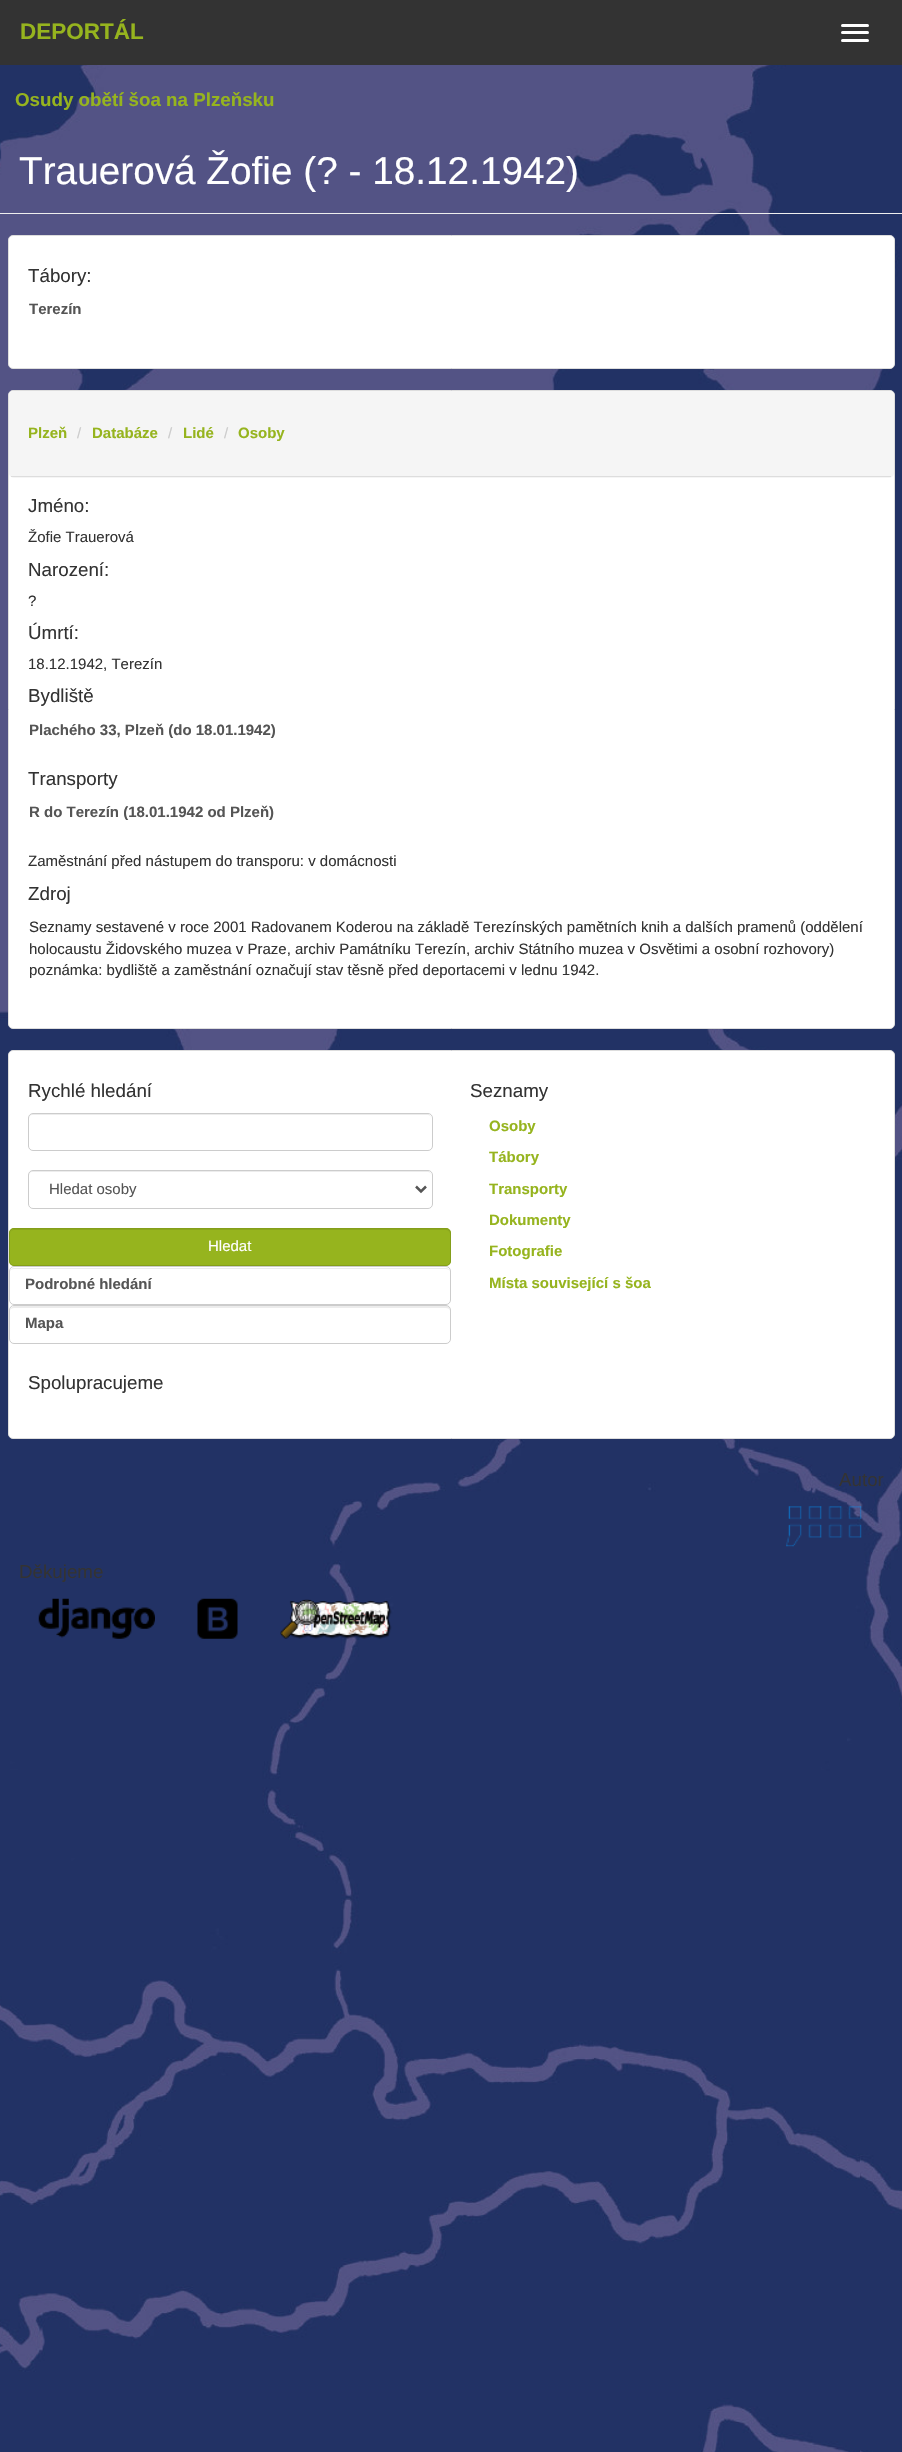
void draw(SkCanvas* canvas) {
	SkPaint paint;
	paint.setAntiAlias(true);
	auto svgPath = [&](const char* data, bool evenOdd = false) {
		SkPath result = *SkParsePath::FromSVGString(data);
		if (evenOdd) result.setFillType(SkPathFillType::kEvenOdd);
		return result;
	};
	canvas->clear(0xffffffff);
	canvas->drawImageRect(SkImages::DeferredFromEncodedData(SkData::MakeFromFileName("img1.png")), SkRect::MakeXYWH(0, 65, 902, 2387), SkSamplingOptions());
	paint.setColor(0xff333333);
	canvas->drawRect(SkRect::MakeXYWH(0, 0, 902, 65), paint);
	SkFont f1(fontMgr->matchFamilyStyle("Liberation Sans", SkFontStyle::Bold()), 22.5);
	f1.setSubpixel(true);
	paint.setColor(0xff96b41e);
	canvas->drawString("DEPORTÁL", 20, 39, f1, paint);
	paint.setColor(0xffffffff);
	canvas->drawRoundRect(SkRect::MakeXYWH(841, 24, 28, 3), 1.5, 1.5, paint);
	canvas->drawRoundRect(SkRect::MakeXYWH(841, 31, 28, 3), 1.5, 1.5, paint);
	canvas->drawRoundRect(SkRect::MakeXYWH(841, 39, 28, 3), 1.5, 1.5, paint);
	paint.setColor(0xffeeeeee);
	canvas->drawRect(SkRect::MakeXYWH(0, 213, 902, 1), paint);
	SkFont f2(fontMgr->matchFamilyStyle("Liberation Sans", SkFontStyle::Bold()), 18.75);
	f2.setSubpixel(true);
	paint.setColor(0xff96b41e);
	canvas->drawString("Osudy obětí šoa na Plzeňsku", 15, 106, f2, paint);
	SkFont f3(fontMgr->matchFamilyStyle("Liberation Sans", SkFontStyle::Normal()), 38.75);
	f3.setSubpixel(true);
	paint.setColor(0xffffffff);
	canvas->drawString("Trauerová Žofie (? - 18.12.1942)", 19, 184, f3, paint);
	canvas->drawRoundRect(SkRect::MakeXYWH(8.5, 235.5, 886, 133), 4.5, 4.5, paint);
	paint.setStroke(true);
	paint.setStrokeWidth(1);
	paint.setColor(0xffdddddd);
	canvas->drawRoundRect(SkRect::MakeXYWH(8.5, 235.5, 886, 133), 4.5, 4.5, paint);
	SkFont f4(fontMgr->matchFamilyStyle("Liberation Sans", SkFontStyle::Normal()), 18.75);
	f4.setSubpixel(true);
	paint.setStroke(false);
	paint.setColor(0xff333333);
	canvas->drawString("Tábory:", 28, 282, f4, paint);
	SkFont f5(fontMgr->matchFamilyStyle("Liberation Sans", SkFontStyle::Bold()), 15);
	f5.setSubpixel(true);
	paint.setColor(0xff555555);
	canvas->drawString("Terezín", 29, 314, f5, paint);
	paint.setColor(0xffffffff);
	canvas->drawRoundRect(SkRect::MakeXYWH(8.5, 390.5, 886, 638), 4.5, 4.5, paint);
	paint.setStroke(true);
	paint.setColor(0xffdddddd);
	canvas->drawRoundRect(SkRect::MakeXYWH(8.5, 390.5, 886, 638), 4.5, 4.5, paint);
	paint.setStroke(false);
	paint.setColor(0xfff5f5f5);
	canvas->drawRoundRect(SkRect::MakeXYWH(9, 391, 885, 87), 5, 5, paint);
	paint.setColor(0xffdddddd);
	canvas->drawRect(SkRect::MakeXYWH(11, 476, 880, 1), paint);
	paint.setColor(0xff96b41e);
	canvas->drawString("Plzeň", 28, 438, f5, paint);
	SkFont f6(fontMgr->matchFamilyStyle("Liberation Sans", SkFontStyle::Normal()), 15);
	f6.setSubpixel(true);
	paint.setColor(0xffcccccc);
	canvas->drawString("/", 77, 438, f6, paint);
	paint.setColor(0xff96b41e);
	canvas->drawString("Databáze", 92, 438, f5, paint);
	paint.setColor(0xffcccccc);
	canvas->drawString("/", 168, 438, f6, paint);
	paint.setColor(0xff96b41e);
	canvas->drawString("Lidé", 183, 438, f5, paint);
	paint.setColor(0xffcccccc);
	canvas->drawString("/", 224, 438, f6, paint);
	paint.setColor(0xff96b41e);
	canvas->drawString("Osoby", 238, 438, f5, paint);
	paint.setColor(0xff333333);
	canvas->drawString("Jméno:", 28, 512, f4, paint);
	canvas->drawString("Žofie Trauerová", 28, 542, f6, paint);
	canvas->drawString("Narození:", 28, 576, f4, paint);
	canvas->drawString("?", 28, 606, f6, paint);
	canvas->drawString("Úmrtí:", 28, 639, f4, paint);
	canvas->drawString("18.12.1942, Terezín", 28, 669, f6, paint);
	canvas->drawString("Bydliště", 28, 702, f4, paint);
	paint.setColor(0xff555555);
	canvas->drawString("Plachého 33, Plzeň (do 18.01.1942)", 29, 735, f5, paint);
	paint.setColor(0xff333333);
	canvas->drawString("Transporty", 28, 785, f4, paint);
	paint.setColor(0xff555555);
	canvas->drawString("R do Terezín (18.01.1942 od Plzeň)", 29, 817, f5, paint);
	paint.setColor(0xff333333);
	canvas->drawString("Zaměstnání před nástupem do transporu: v domácnosti", 28, 866, f6, paint);
	canvas->drawString("Zdroj", 28, 900, f4, paint);
	canvas->drawString("Seznamy sestavené v roce 2001 Radovanem Koderou na základě Terezínských pamětních knih a dalších pramenů (oddělení", 29, 932, f6, paint);
	canvas->drawString("holocaustu Židovského muzea v Praze, archiv Památníku Terezín, archiv Státního muzea v Osvětimi a osobní rozhovory)", 29, 954, f6, paint);
	canvas->drawString("poznámka: bydliště a zaměstnání označují stav těsně před deportacemi v lednu 1942.", 29, 975, f6, paint);
	paint.setColor(0xffffffff);
	canvas->drawRoundRect(SkRect::MakeXYWH(8.5, 1050.5, 886, 388), 4.5, 4.5, paint);
	paint.setStroke(true);
	paint.setColor(0xffdddddd);
	canvas->drawRoundRect(SkRect::MakeXYWH(8.5, 1050.5, 886, 388), 4.5, 4.5, paint);
	paint.setStroke(false);
	paint.setColor(0xff333333);
	canvas->drawString("Rychlé hledání", 28, 1097, f4, paint);
	paint.setColor(0xffececec);
	canvas->drawPath(svgPath("M32 1115H428C430 1115 431 1117 431 1119C431 1116 430 1114 427 1114H33C30 1114 29 1116 29 1119C29 1117 30 1115 32 1115Z"), paint);
	paint.setStroke(true);
	paint.setColor(0xffcccccc);
	canvas->drawRoundRect(SkRect::MakeXYWH(28.5, 1113.5, 404, 37), 4.5, 4.5, paint);
	paint.setStroke(false);
	paint.setColor(0xffececec);
	canvas->drawPath(svgPath("M32 1172H428C430 1172 431 1174 431 1176C431 1173 430 1171 427 1171H33C30 1171 29 1173 29 1176C29 1174 30 1172 32 1172Z"), paint);
	paint.setStroke(true);
	paint.setColor(0xffcccccc);
	canvas->drawRoundRect(SkRect::MakeXYWH(28.5, 1170.5, 404, 38), 4.5, 4.5, paint);
	paint.setStrokeWidth(2.5);
	paint.setColor(0xff555555);
	canvas->drawPath(svgPath("M416 1186.5L421 1191.5L426 1186.5"), paint);
	paint.setStroke(false);
	canvas->drawString("Hledat osoby", 49, 1194, f6, paint);
	paint.setColor(0xff96b41e);
	canvas->drawRoundRect(SkRect::MakeXYWH(9, 1228, 442, 38), 5, 5, paint);
	paint.setColor(0xff8ba71c);
	canvas->drawPath(svgPath("M14 1230H446C448 1230 450 1232 450 1234C450 1231 449 1229 446 1229H14L12 1230L11 1231L10 1234C10 1232 12 1230 14 1230Z"), paint);
	paint.setStroke(true);
	paint.setStrokeWidth(1);
	paint.setColor(0xff849e1a);
	canvas->drawRoundRect(SkRect::MakeXYWH(9.5, 1228.5, 441, 37), 4.5, 4.5, paint);
	paint.setStroke(false);
	paint.setColor(0xffffffff);
	canvas->drawString("Hledat", 208, 1251, f6, paint);
	paint.setColor(0xffececec);
	canvas->drawPath(svgPath("M14 1269H446C448 1269 450 1270 450 1272C450 1270 448 1268 446 1268H14C12 1268 10 1270 10 1272C10 1270 12 1269 14 1269Z"), paint);
	paint.setStroke(true);
	paint.setColor(0xffcccccc);
	canvas->drawRoundRect(SkRect::MakeXYWH(9.5, 1266.5, 441, 38), 4.5, 4.5, paint);
	paint.setStroke(false);
	paint.setColor(0xff555555);
	canvas->drawString("Podrobné hledání", 25, 1289, f5, paint);
	paint.setColor(0xffececec);
	canvas->drawPath(svgPath("M14 1308H446C448 1308 450 1309 450 1311C450 1308 449 1306 446 1306H14L12 1307L11 1308L10 1311C10 1309 12 1308 14 1308Z"), paint);
	paint.setStroke(true);
	paint.setColor(0xffcccccc);
	canvas->drawRoundRect(SkRect::MakeXYWH(9.5, 1305.5, 441, 38), 4.5, 4.5, paint);
	paint.setStroke(false);
	paint.setColor(0xff555555);
	canvas->drawString("Mapa", 25, 1328, f5, paint);
	paint.setColor(0xff333333);
	canvas->drawString("Seznamy", 470, 1097, f4, paint);
	paint.setColor(0xff96b41e);
	canvas->drawString("Osoby", 489, 1131, f5, paint);
	canvas->drawString("Tábory", 489, 1162, f5, paint);
	canvas->drawString("Transporty", 489, 1194, f5, paint);
	canvas->drawString("Dokumenty", 489, 1225, f5, paint);
	canvas->drawString("Fotografie", 489, 1256, f5, paint);
	canvas->drawString("Místa související s šoa", 489, 1288, f5, paint);
	paint.setColor(0xff333333);
	canvas->drawString("Spolupracujeme", 28, 1389, f4, paint);
	canvas->drawString("Autor", 839, 1486, f4, paint);
	canvas->drawImageRect(SkImages::DeferredFromEncodedData(SkData::MakeFromFileName("img2.png")), SkRect::MakeXYWH(786, 1506, 76, 41), SkSamplingOptions());
	canvas->drawString("Děkujeme", 19, 1578, f4, paint);
	canvas->drawImageRect(SkImages::DeferredFromEncodedData(SkData::MakeFromFileName("img3.png")), SkRect::MakeXYWH(38, 1598, 117, 41), SkSamplingOptions());
	canvas->drawImageRect(SkImages::DeferredFromEncodedData(SkData::MakeFromFileName("img4.png")), SkRect::MakeXYWH(197, 1598, 41, 41), SkSamplingOptions());
	canvas->drawImageRect(SkImages::DeferredFromEncodedData(SkData::MakeFromFileName("img5.png")), SkRect::MakeXYWH(280, 1599, 112, 40), SkSamplingOptions());
}
